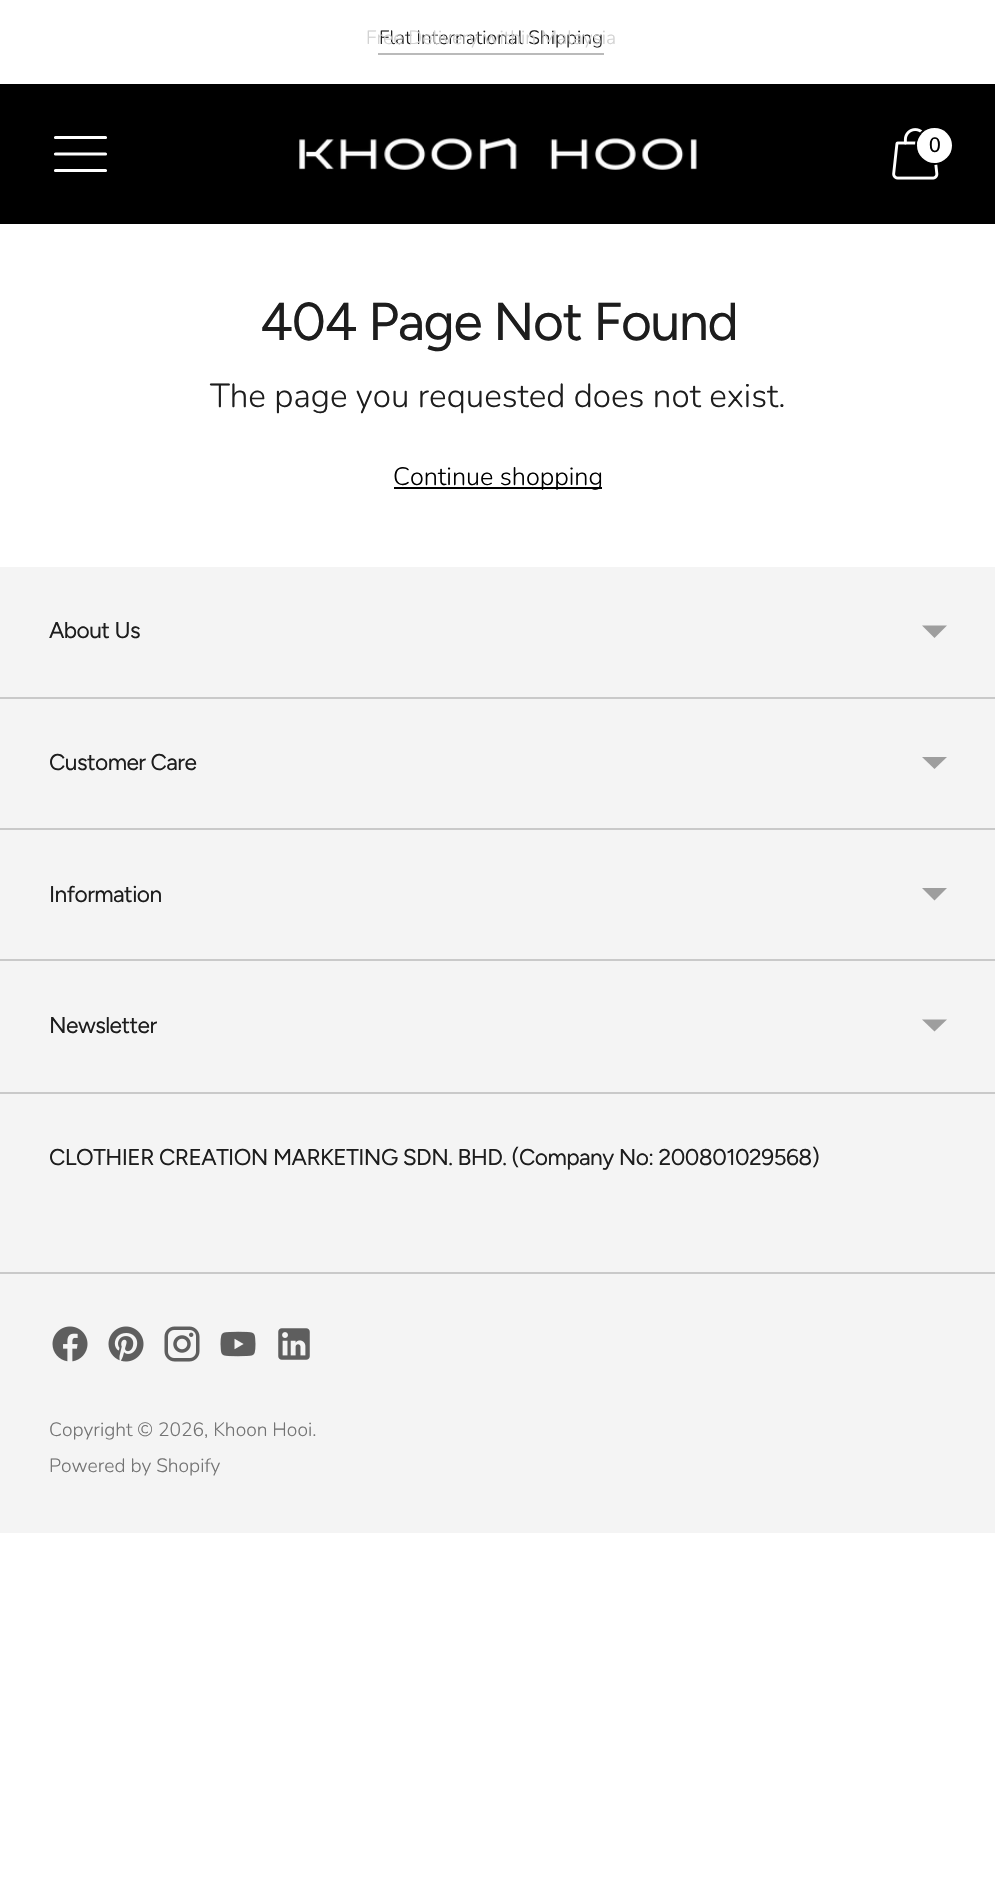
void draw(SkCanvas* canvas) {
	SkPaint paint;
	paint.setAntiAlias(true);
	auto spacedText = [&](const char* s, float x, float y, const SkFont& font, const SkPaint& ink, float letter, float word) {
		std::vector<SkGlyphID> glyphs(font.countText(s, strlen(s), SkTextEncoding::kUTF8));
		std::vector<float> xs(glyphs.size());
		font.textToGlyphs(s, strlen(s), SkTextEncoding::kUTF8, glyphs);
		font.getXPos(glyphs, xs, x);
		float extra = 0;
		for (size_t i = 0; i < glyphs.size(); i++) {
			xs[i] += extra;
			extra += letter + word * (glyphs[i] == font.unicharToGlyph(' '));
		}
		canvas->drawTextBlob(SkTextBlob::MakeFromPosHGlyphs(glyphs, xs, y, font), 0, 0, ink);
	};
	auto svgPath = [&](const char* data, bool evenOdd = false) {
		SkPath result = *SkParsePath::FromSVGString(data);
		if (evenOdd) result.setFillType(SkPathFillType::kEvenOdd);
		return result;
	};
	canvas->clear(0xffffffff);
	SkFont f1(fontMgr->matchFamilyStyle("Nunito", SkFontStyle(300, SkFontStyle::kNormal_Width, SkFontStyle::kUpright_Slant)), 19.25);
	f1.setSubpixel(true);
	paint.setColor(0xff1d1d1d);
	canvas->drawString("Flat International Shipping", 379, 44, f1, paint);
	paint.setColor(0xffd1d1d1);
	canvas->drawString("Free Delivery within Malaysia", 366, 44, f1, paint);
	paint.setColor(0xffbababa);
	canvas->drawRect(SkRect::MakeXYWH(378, 53, 226, 2), paint);
	paint.setColor(0xff000000);
	canvas->drawRect(SkRect::MakeXYWH(0, 84, 995, 140), paint);
	paint.setStroke(true);
	paint.setStrokeWidth(3.2);
	paint.setStrokeCap(SkPaint::kRound_Cap);
	paint.setStrokeJoin(SkPaint::kRound_Join);
	paint.setColor(0xffffffff);
	canvas->drawPath(svgPath("M55.5 154H105.5M55.5 137.5H105.5M55.5 170.5H105.5"), paint);
	canvas->drawImageRect(SkImages::DeferredFromEncodedData(SkData::MakeFromFileName("img1.png")), SkRect::MakeXYWH(299, 138, 398, 32), SkSamplingOptions());
	canvas->drawImageRect(SkImages::DeferredFromEncodedData(SkData::MakeFromFileName("img2.png")), SkRect::MakeXYWH(892, 128, 47, 52), SkSamplingOptions());
	paint.setStrokeWidth(2);
	paint.setStrokeCap(SkPaint::kButt_Cap);
	paint.setStrokeJoin(SkPaint::kMiter_Join);
	paint.setColor(0xff000000);
	canvas->drawCircle(934.5, 145.5, 18.5, paint);
	paint.setStroke(false);
	paint.setColor(0xffffffff);
	canvas->drawCircle(934.5, 145.5, 17.5, paint);
	SkFont f2(fontMgr->matchFamilyStyle("Liberation Sans", SkFontStyle::Normal()), 21);
	f2.setSubpixel(true);
	paint.setColor(0xff000000);
	canvas->drawString("0", 929, 152, f2, paint);
	SkFont f3(fontMgr->matchFamilyStyle("Figtree", SkFontStyle::Normal()), 53.25);
	f3.setSubpixel(true);
	paint.setColor(0xff1d1d1d);
	spacedText("404 Page Not Found", 260, 340, f3, paint, -1.3, 0);
	SkFont f4(fontMgr->matchFamilyStyle("Nunito", SkFontStyle(300, SkFontStyle::kNormal_Width, SkFontStyle::kUpright_Slant)), 33.25);
	f4.setSubpixel(true);
	canvas->drawString("The page you requested does not exist.", 210, 407, f4, paint);
	paint.setColor(0xff000000);
	canvas->drawRect(SkRect::MakeXYWH(394, 487, 208, 2), paint);
	SkFont f5(fontMgr->matchFamilyStyle("Nunito", SkFontStyle(300, SkFontStyle::kNormal_Width, SkFontStyle::kUpright_Slant)), 25.25);
	f5.setSubpixel(true);
	canvas->drawString("Continue shopping", 393, 485, f5, paint);
	paint.setColor(0xfff4f4f4);
	canvas->drawRect(SkRect::MakeXYWH(0, 567, 995, 966), paint);
	paint.setColor(0xffc9c9c9);
	canvas->drawRect(SkRect::MakeXYWH(0, 697, 995, 2), paint);
	SkFont f6(fontMgr->matchFamilyStyle("Figtree", SkFontStyle::Normal()), 22.75);
	f6.setSubpixel(true);
	paint.setColor(0xff1d1d1d);
	spacedText("About Us", 49, 638, f6, paint, -0.57, 0);
	paint.setColor(0xff9e9e9e);
	canvas->drawPath(svgPath("M922 625.5L934.5 638L947 625.5Z"), paint);
	paint.setColor(0xffc9c9c9);
	canvas->drawRect(SkRect::MakeXYWH(0, 828, 995, 2), paint);
	paint.setColor(0xff1d1d1d);
	spacedText("Customer Care", 49, 770, f6, paint, -0.57, 0);
	paint.setColor(0xff9e9e9e);
	canvas->drawPath(svgPath("M922 757L934.5 769L947 757Z"), paint);
	paint.setColor(0xffc9c9c9);
	canvas->drawRect(SkRect::MakeXYWH(0, 959, 995, 2), paint);
	paint.setColor(0xff1d1d1d);
	spacedText("Information", 49, 902, f6, paint, -0.57, 0);
	paint.setColor(0xff9e9e9e);
	canvas->drawPath(svgPath("M922 888L934.5 900.5L947 888Z"), paint);
	paint.setColor(0xffc9c9c9);
	canvas->drawRect(SkRect::MakeXYWH(0, 1092, 995, 2), paint);
	paint.setColor(0xff1d1d1d);
	spacedText("Newsletter", 49, 1033, f6, paint, -0.57, 0);
	paint.setColor(0xff9e9e9e);
	canvas->drawPath(svgPath("M922 1019.5L934.5 1031.5L947 1019.5Z"), paint);
	paint.setColor(0xffc9c9c9);
	canvas->drawRect(SkRect::MakeXYWH(0, 1272, 995, 2), paint);
	paint.setColor(0xff1d1d1d);
	spacedText("CLOTHIER CREATION MARKETING SDN. BHD. (Company No: 200801029568)", 49, 1165, f6, paint, -0.57, 0);
	canvas->drawImageRect(SkImages::DeferredFromEncodedData(SkData::MakeFromFileName("img3.png")), SkRect::MakeXYWH(52, 1326, 36, 36), SkSamplingOptions());
	canvas->drawImageRect(SkImages::DeferredFromEncodedData(SkData::MakeFromFileName("img4.png")), SkRect::MakeXYWH(108, 1326, 36, 36), SkSamplingOptions());
	canvas->drawImageRect(SkImages::DeferredFromEncodedData(SkData::MakeFromFileName("img5.png")), SkRect::MakeXYWH(164, 1326, 36, 36), SkSamplingOptions());
	canvas->drawImageRect(SkImages::DeferredFromEncodedData(SkData::MakeFromFileName("img6.png")), SkRect::MakeXYWH(220, 1331, 36, 26), SkSamplingOptions());
	canvas->drawImageRect(SkImages::DeferredFromEncodedData(SkData::MakeFromFileName("img7.png")), SkRect::MakeXYWH(278, 1328, 32, 32), SkSamplingOptions());
	paint.setColor(0xff737373);
	canvas->drawString("Copyright © 2026, Khoon Hooi.", 49, 1436, f1, paint);
	canvas->drawString("Powered by Shopify", 49, 1472, f1, paint);
}
